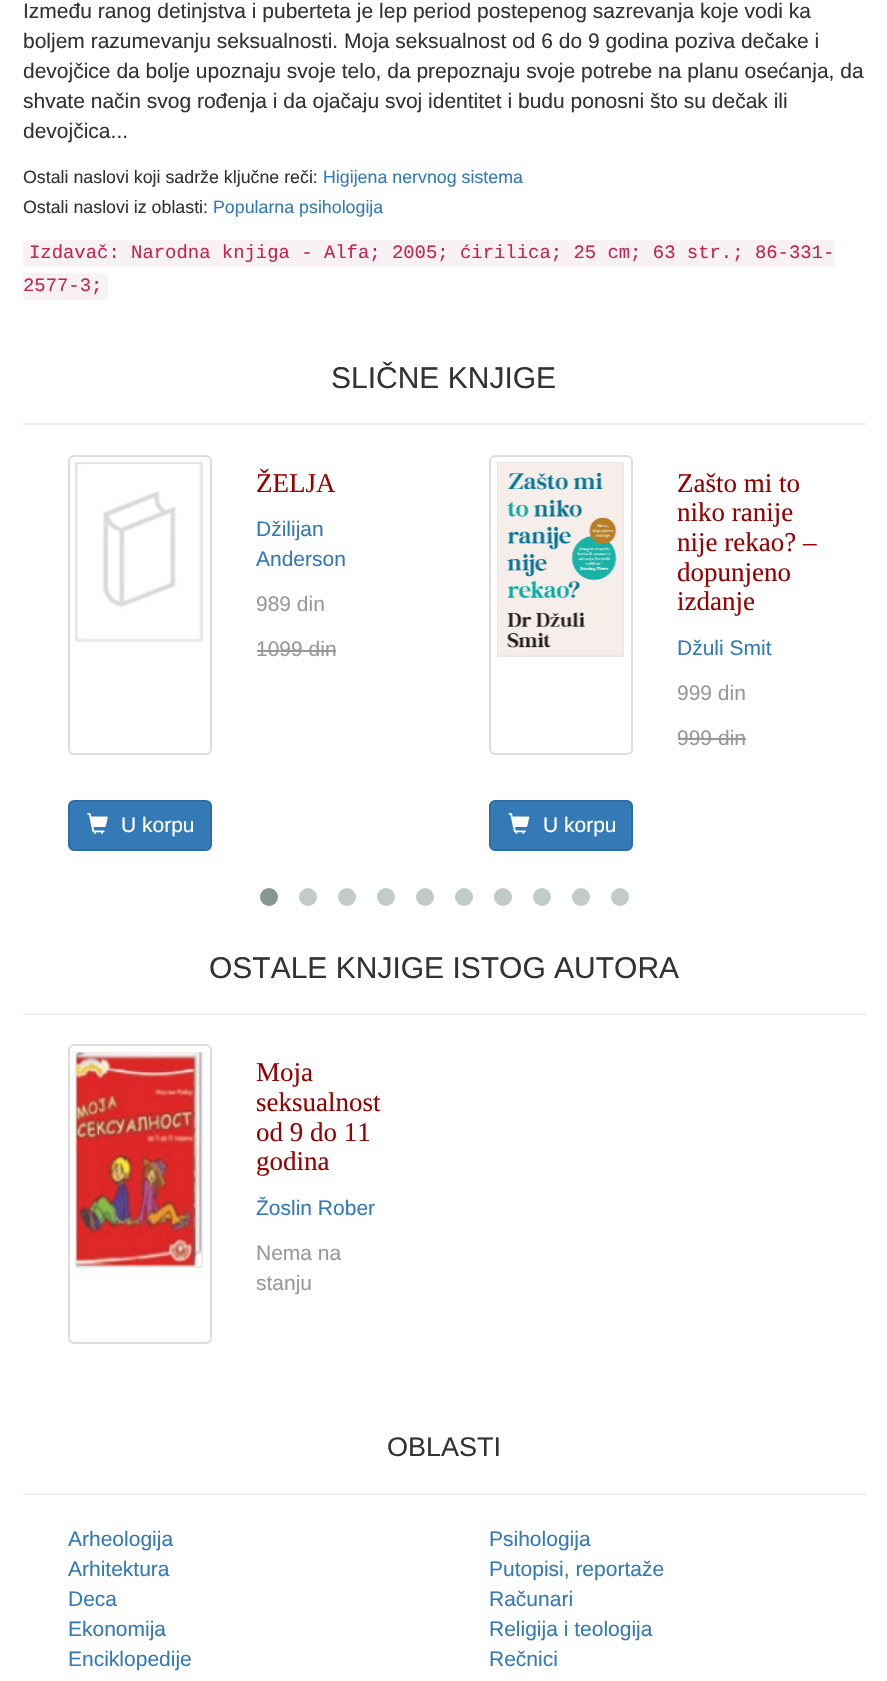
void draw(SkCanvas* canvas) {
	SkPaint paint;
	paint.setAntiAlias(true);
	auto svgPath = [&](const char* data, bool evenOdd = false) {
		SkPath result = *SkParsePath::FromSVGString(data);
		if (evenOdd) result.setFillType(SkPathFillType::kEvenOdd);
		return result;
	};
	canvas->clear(0xffffffff);
	SkFont f1(fontMgr->matchFamilyStyle("Liberation Sans", SkFontStyle::Normal()), 21);
	f1.setSubpixel(true);
	paint.setColor(0xff333333);
	canvas->drawString("Između ranog detinjstva i puberteta je lep period postepenog sazrevanja koje vodi ka", 23, 18, f1, paint);
	canvas->drawString("boljem razumevanju seksualnosti. Moja seksualnost od 6 do 9 godina poziva dečake i", 23, 48, f1, paint);
	canvas->drawString("devojčice da bolje upoznaju svoje telo, da prepoznaju svoje potrebe na planu osećanja, da", 23, 78, f1, paint);
	canvas->drawString("shvate način svog rođenja i da ojačaju svoj identitet i budu ponosni što su dečak ili", 23, 108, f1, paint);
	canvas->drawString("devojčica...", 23, 138, f1, paint);
	SkFont f2(fontMgr->matchFamilyStyle("Liberation Sans", SkFontStyle::Normal()), 17.8);
	f2.setSubpixel(true);
	canvas->drawString("Ostali naslovi koji sadrže ključne reči:", 23, 183, f2, paint);
	paint.setColor(0xff337ab7);
	canvas->drawString("Higijena nervnog sistema", 323, 183, f2, paint);
	paint.setColor(0xff333333);
	canvas->drawString("Ostali naslovi iz oblasti:", 23, 213, f2, paint);
	paint.setColor(0xff337ab7);
	canvas->drawString("Popularna psihologija", 213, 213, f2, paint);
	paint.setColor(0xfff9f2f4);
	canvas->drawPath(svgPath("M29 240H834V267H29C25.5 267 23 264.5 23 261V246C23 242.5 25.5 240 29 240Z"), paint);
	SkFont f3(fontMgr->matchFamilyStyle("Liberation Mono", SkFontStyle::Normal()), 18.9);
	f3.setSubpixel(true);
	paint.setColor(0xffc7254e);
	canvas->drawString("Izdavač: Narodna knjiga - Alfa; 2005; ćirilica; 25 cm; 63 str.; 86-331-", 29, 258, f3, paint);
	paint.setColor(0xfff9f2f4);
	canvas->drawPath(svgPath("M23 273H102C105.5 273 108 275.5 108 279V294C108 297.5 105.5 300 102 300H23Z"), paint);
	paint.setColor(0xffc7254e);
	canvas->drawString("2577-3;", 23, 291, f3, paint);
	paint.setColor(0xffeeeeee);
	canvas->drawRect(SkRect::MakeXYWH(23, 423, 843, 2), paint);
	SkFont f4(fontMgr->matchFamilyStyle("Liberation Sans", SkFontStyle::Normal()), 30);
	f4.setSubpixel(true);
	paint.setColor(0xff333333);
	canvas->drawString("SLIČNE KNJIGE", 331, 388, f4, paint);
	SkFont f5(fontMgr->matchFamilyStyle("Liberation Serif", SkFontStyle::Normal()), 27);
	f5.setSubpixel(true);
	paint.setColor(0xff990000);
	canvas->drawString("ŽELJA", 256, 492, f5, paint);
	paint.setColor(0xff337ab7);
	canvas->drawString("Džilijan", 256, 536, f1, paint);
	canvas->drawString("Anderson", 256, 566, f1, paint);
	paint.setColor(0xff999999);
	canvas->drawString("989 din", 256, 611, f1, paint);
	canvas->drawString("1099 din", 256, 656, f1, paint);
	canvas->drawRect(SkRect::MakeXYWH(257, 650, 79, 2), paint);
	paint.setStroke(true);
	paint.setStrokeWidth(2);
	paint.setColor(0xffdddddd);
	canvas->drawRoundRect(SkRect::MakeXYWH(69, 456, 142, 298), 5, 5, paint);
	paint.setColor(0xffe9e9e9);
	canvas->drawRect(SkRect::MakeXYWH(76, 463, 126, 178), paint);
	canvas->drawImageRect(SkImages::DeferredFromEncodedData(SkData::MakeFromFileName("img1.png")), SkRect::MakeXYWH(76, 463, 126, 177), SkSamplingOptions());
	paint.setStroke(false);
	paint.setColor(0xff337ab7);
	canvas->drawRoundRect(SkRect::MakeXYWH(69, 801, 142, 49), 5, 5, paint);
	paint.setStroke(true);
	paint.setColor(0xff2e6da4);
	canvas->drawRoundRect(SkRect::MakeXYWH(69, 801, 142, 49), 5, 5, paint);
	canvas->drawImageRect(SkImages::DeferredFromEncodedData(SkData::MakeFromFileName("img2.png")), SkRect::MakeXYWH(87, 813, 21, 21), SkSamplingOptions());
	paint.setStroke(false);
	paint.setColor(0xffffffff);
	canvas->drawString("U korpu", 121, 832, f1, paint);
	paint.setColor(0xff990000);
	canvas->drawString("Zašto mi to", 677, 492, f5, paint);
	canvas->drawString("niko ranije", 677, 521, f5, paint);
	canvas->drawString("nije rekao? –", 677, 551, f5, paint);
	canvas->drawString("dopunjeno", 677, 581, f5, paint);
	canvas->drawString("izdanje", 677, 610, f5, paint);
	paint.setColor(0xff337ab7);
	canvas->drawString("Džuli Smit", 677, 655, f1, paint);
	paint.setColor(0xff999999);
	canvas->drawString("999 din", 677, 700, f1, paint);
	canvas->drawString("999", 677, 745, f1, paint);
	canvas->drawRect(SkRect::MakeXYWH(678, 738, 41, 2), paint);
	canvas->drawString("din", 718, 745, f1, paint);
	canvas->drawRect(SkRect::MakeXYWH(719, 738, 27, 2), paint);
	paint.setStroke(true);
	paint.setColor(0xffdddddd);
	canvas->drawRoundRect(SkRect::MakeXYWH(490, 456, 142, 298), 5, 5, paint);
	paint.setColor(0xffe9e9e9);
	canvas->drawRect(SkRect::MakeXYWH(498, 463, 125, 193), paint);
	canvas->drawImageRect(SkImages::DeferredFromEncodedData(SkData::MakeFromFileName("img3.png")), SkRect::MakeXYWH(498, 463, 125, 192), SkSamplingOptions());
	paint.setStroke(false);
	paint.setColor(0xff337ab7);
	canvas->drawRoundRect(SkRect::MakeXYWH(490, 801, 142, 49), 5, 5, paint);
	paint.setStroke(true);
	paint.setColor(0xff2e6da4);
	canvas->drawRoundRect(SkRect::MakeXYWH(490, 801, 142, 49), 5, 5, paint);
	canvas->drawImageRect(SkImages::DeferredFromEncodedData(SkData::MakeFromFileName("img4.png")), SkRect::MakeXYWH(508, 813, 22, 21), SkSamplingOptions());
	paint.setStroke(false);
	paint.setColor(0xffffffff);
	canvas->drawString("U korpu", 543, 832, f1, paint);
	paint.setColor(0xff869791);
	canvas->drawCircle(269, 897, 9, paint);
	paint.setColor(0xffc3cbc8);
	canvas->drawCircle(308, 897, 9, paint);
	canvas->drawCircle(347, 897, 9, paint);
	canvas->drawCircle(386, 897, 9, paint);
	canvas->drawCircle(425, 897, 9, paint);
	canvas->drawCircle(464, 897, 9, paint);
	canvas->drawCircle(503, 897, 9, paint);
	canvas->drawCircle(542, 897, 9, paint);
	canvas->drawCircle(581, 897, 9, paint);
	canvas->drawCircle(620, 897, 9, paint);
	paint.setColor(0xffeeeeee);
	canvas->drawRect(SkRect::MakeXYWH(23, 1013, 843, 2), paint);
	paint.setColor(0xff333333);
	canvas->drawString("OSTALE KNJIGE ISTOG AUTORA", 209, 978, f4, paint);
	paint.setStroke(true);
	paint.setColor(0xffdddddd);
	canvas->drawRoundRect(SkRect::MakeXYWH(69, 1045, 142, 298), 5, 5, paint);
	paint.setColor(0xffe9e9e9);
	canvas->drawRect(SkRect::MakeXYWH(76, 1053, 126, 214), paint);
	canvas->drawImageRect(SkImages::DeferredFromEncodedData(SkData::MakeFromFileName("img5.png")), SkRect::MakeXYWH(76, 1052, 126, 215), SkSamplingOptions());
	paint.setStroke(false);
	paint.setColor(0xff990000);
	canvas->drawString("Moja", 256, 1081, f5, paint);
	canvas->drawString("seksualnost", 256, 1111, f5, paint);
	canvas->drawString("od 9 do 11", 256, 1141, f5, paint);
	canvas->drawString("godina", 256, 1170, f5, paint);
	paint.setColor(0xff337ab7);
	canvas->drawString("Žoslin Rober", 256, 1215, f1, paint);
	paint.setColor(0xff999999);
	canvas->drawString("Nema na", 256, 1260, f1, paint);
	canvas->drawString("stanju", 256, 1290, f1, paint);
	paint.setColor(0xffeeeeee);
	canvas->drawRect(SkRect::MakeXYWH(23, 1493, 843, 2), paint);
	SkFont f6(fontMgr->matchFamilyStyle("Liberation Sans", SkFontStyle::Normal()), 27);
	f6.setSubpixel(true);
	paint.setColor(0xff333333);
	canvas->drawString("OBLASTI", 387, 1456, f6, paint);
	paint.setColor(0xff337ab7);
	canvas->drawString("Arheologija", 68, 1546, f1, paint);
	canvas->drawString("Arhitektura", 68, 1576, f1, paint);
	canvas->drawString("Deca", 68, 1606, f1, paint);
	canvas->drawString("Ekonomija", 68, 1636, f1, paint);
	canvas->drawString("Enciklopedije", 68, 1666, f1, paint);
	canvas->drawString("Psihologija", 489, 1546, f1, paint);
	canvas->drawString("Putopisi, reportaže", 489, 1576, f1, paint);
	canvas->drawString("Računari", 489, 1606, f1, paint);
	canvas->drawString("Religija i teologija", 489, 1636, f1, paint);
	canvas->drawString("Rečnici", 489, 1666, f1, paint);
}
